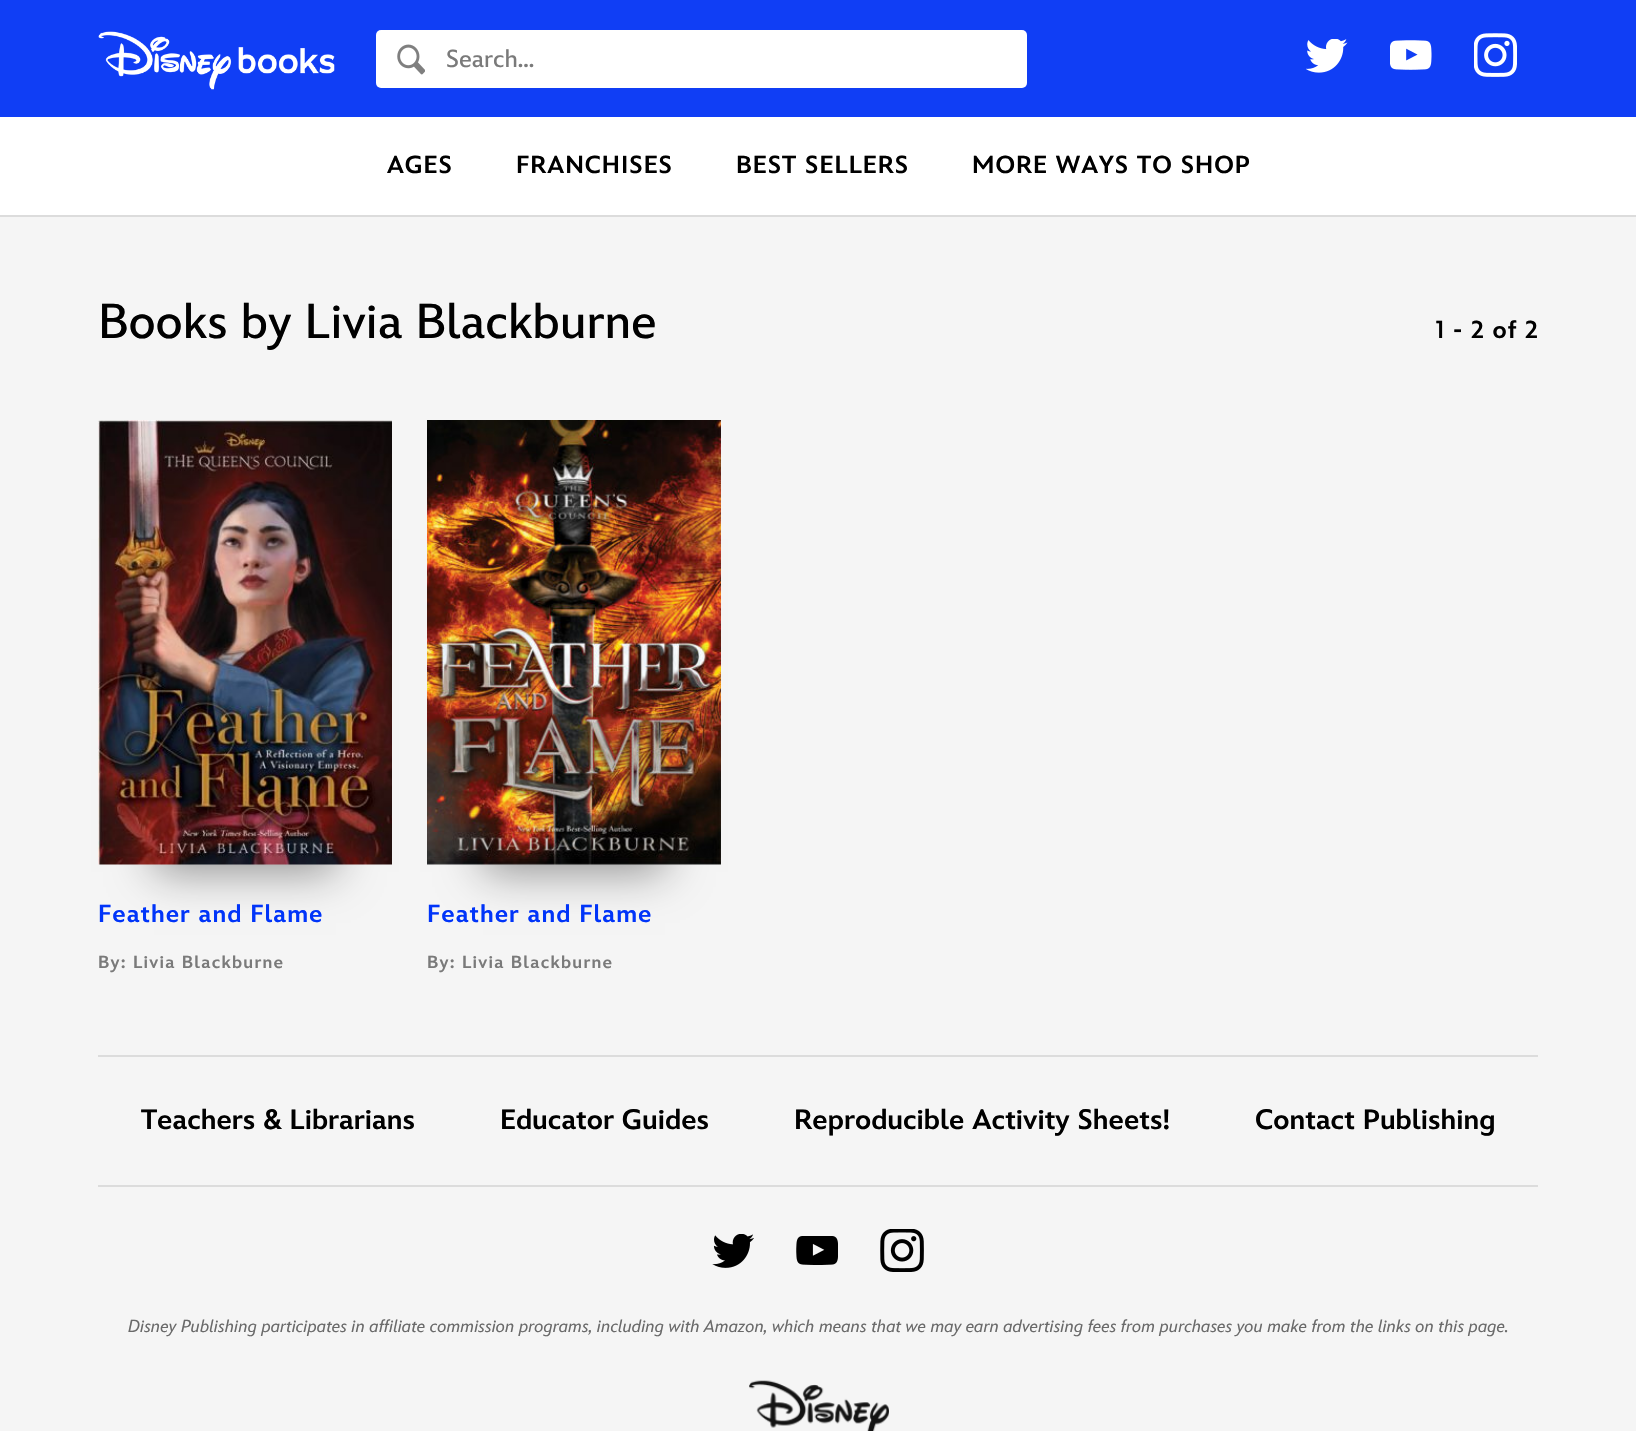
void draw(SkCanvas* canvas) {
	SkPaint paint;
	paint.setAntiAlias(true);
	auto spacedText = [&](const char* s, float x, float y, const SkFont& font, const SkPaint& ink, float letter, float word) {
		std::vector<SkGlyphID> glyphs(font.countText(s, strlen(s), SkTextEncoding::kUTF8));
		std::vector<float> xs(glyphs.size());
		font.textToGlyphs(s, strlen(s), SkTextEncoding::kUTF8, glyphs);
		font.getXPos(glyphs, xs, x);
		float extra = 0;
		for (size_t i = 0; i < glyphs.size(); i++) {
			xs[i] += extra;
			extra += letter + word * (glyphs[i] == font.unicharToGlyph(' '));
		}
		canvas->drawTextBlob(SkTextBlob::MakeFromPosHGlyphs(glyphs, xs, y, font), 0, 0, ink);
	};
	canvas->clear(0xfff5f5f5);
	paint.setColor(0xff103ef5);
	canvas->drawRect(SkRect::MakeXYWH(0, 0, 1636, 117), paint);
	canvas->drawImageRect(SkImages::DeferredFromEncodedData(SkData::MakeFromFileName("img1.png")), SkRect::MakeXYWH(98, 31, 237, 59), SkSamplingOptions());
	paint.setColor(0xffffffff);
	canvas->drawRoundRect(SkRect::MakeXYWH(376, 30, 651, 58), 5, 5, paint);
	canvas->drawImageRect(SkImages::DeferredFromEncodedData(SkData::MakeFromFileName("img2.png")), SkRect::MakeXYWH(397, 44, 28, 31), SkSamplingOptions());
	SkFont f1(fontMgr->matchFamilyStyle("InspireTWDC", SkFontStyle(500, SkFontStyle::kNormal_Width, SkFontStyle::kUpright_Slant)), 24.5);
	f1.setSubpixel(true);
	paint.setColor(0xff7a7a7a);
	canvas->drawString("Search...", 446, 67, f1, paint);
	canvas->drawImageRect(SkImages::DeferredFromEncodedData(SkData::MakeFromFileName("img3.png")), SkRect::MakeXYWH(1306, 39, 42, 34), SkSamplingOptions());
	canvas->drawImageRect(SkImages::DeferredFromEncodedData(SkData::MakeFromFileName("img4.png")), SkRect::MakeXYWH(1390, 40, 42, 30), SkSamplingOptions());
	canvas->drawImageRect(SkImages::DeferredFromEncodedData(SkData::MakeFromFileName("img5.png")), SkRect::MakeXYWH(1474, 33, 43, 44), SkSamplingOptions());
	paint.setColor(0xffffffff);
	canvas->drawRect(SkRect::MakeXYWH(0, 117, 1636, 98), paint);
	paint.setColor(0xffdcdcdc);
	canvas->drawRect(SkRect::MakeXYWH(0, 215, 1636, 2), paint);
	SkFont f2(fontMgr->matchFamilyStyle("InspireTWDC", SkFontStyle(900, SkFontStyle::kNormal_Width, SkFontStyle::kUpright_Slant)), 24.5);
	f2.setSubpixel(true);
	paint.setColor(0xff000000);
	spacedText("AGES", 387, 173, f2, paint, 1, 0);
	spacedText("FRANCHISES", 516, 173, f2, paint, 1, 0);
	spacedText("BEST SELLERS", 736, 173, f2, paint, 1, 0);
	spacedText("MORE WAYS TO SHOP", 972, 173, f2, paint, 1, 0);
	SkFont f3(fontMgr->matchFamilyStyle("InspireTWDC", SkFontStyle(500, SkFontStyle::kNormal_Width, SkFontStyle::kUpright_Slant)), 49);
	f3.setSubpixel(true);
	canvas->drawString("Books by Livia Blackburne", 98, 338, f3, paint);
	spacedText("1 - 2 of 2", 1436, 338, f2, paint, 1, 0);
	paint.setColor(0x66000000);
	paint.setMaskFilter(SkMaskFilter::MakeBlur(kNormal_SkBlurStyle, 21));
	canvas->drawRect(SkRect::MakeXYWH(154, 539, 182, 333), paint);
	paint.setMaskFilter(nullptr);
	canvas->drawImageRect(SkImages::DeferredFromEncodedData(SkData::MakeFromFileName("img6.png")), SkRect::MakeXYWH(98, 420, 294, 445), SkSamplingOptions());
	paint.setColor(0xff0034f9);
	spacedText("Feather and Flame", 98, 922, f2, paint, 1, 0);
	SkFont f4(fontMgr->matchFamilyStyle("InspireTWDC", SkFontStyle(900, SkFontStyle::kNormal_Width, SkFontStyle::kUpright_Slant)), 17.5);
	f4.setSubpixel(true);
	paint.setColor(0xff7a7a7a);
	spacedText("By: Livia Blackburne", 98, 968, f4, paint, 1.25, 0);
	paint.setColor(0x66000000);
	paint.setMaskFilter(SkMaskFilter::MakeBlur(kNormal_SkBlurStyle, 21));
	canvas->drawRect(SkRect::MakeXYWH(483, 539, 182, 333), paint);
	paint.setMaskFilter(nullptr);
	canvas->drawImageRect(SkImages::DeferredFromEncodedData(SkData::MakeFromFileName("img7.png")), SkRect::MakeXYWH(427, 420, 294, 445), SkSamplingOptions());
	paint.setColor(0xff0034f9);
	spacedText("Feather and Flame", 427, 922, f2, paint, 1, 0);
	paint.setColor(0xff7a7a7a);
	spacedText("By: Livia Blackburne", 427, 968, f4, paint, 1.25, 0);
	paint.setColor(0xffdcdcdc);
	canvas->drawRect(SkRect::MakeXYWH(98, 1055, 1440, 2), paint);
	canvas->drawRect(SkRect::MakeXYWH(98, 1185, 1440, 2), paint);
	SkFont f5(fontMgr->matchFamilyStyle("InspireTWDC", SkFontStyle(900, SkFontStyle::kNormal_Width, SkFontStyle::kUpright_Slant)), 28);
	f5.setSubpixel(true);
	paint.setColor(0xff000000);
	canvas->drawString("Teachers & Librarians", 141, 1129, f5, paint);
	canvas->drawString("Educator Guides", 500, 1129, f5, paint);
	canvas->drawString("Reproducible Activity Sheets!", 794, 1129, f5, paint);
	canvas->drawString("Contact Publishing", 1255, 1129, f5, paint);
	canvas->drawImageRect(SkImages::DeferredFromEncodedData(SkData::MakeFromFileName("img8.png")), SkRect::MakeXYWH(712, 1234, 42, 34), SkSamplingOptions());
	canvas->drawImageRect(SkImages::DeferredFromEncodedData(SkData::MakeFromFileName("img9.png")), SkRect::MakeXYWH(796, 1236, 42, 29), SkSamplingOptions());
	canvas->drawImageRect(SkImages::DeferredFromEncodedData(SkData::MakeFromFileName("img10.png")), SkRect::MakeXYWH(880, 1229, 44, 43), SkSamplingOptions());
	SkFont f6(fontMgr->matchFamilyStyle("InspireTWDC", SkFontStyle::Italic()), 17.5);
	f6.setSubpixel(true);
	paint.setColor(0xff6a6a6a);
	canvas->drawString("Disney Publishing participates in affiliate commission programs, including with Amazon, which means that we may earn advertising fees from purchases you make from the links on this page.", 128, 1332, f6, paint);
	canvas->drawImageRect(SkImages::DeferredFromEncodedData(SkData::MakeFromFileName("img11.png")), SkRect::MakeXYWH(749, 1380, 140, 51), SkSamplingOptions());
}
